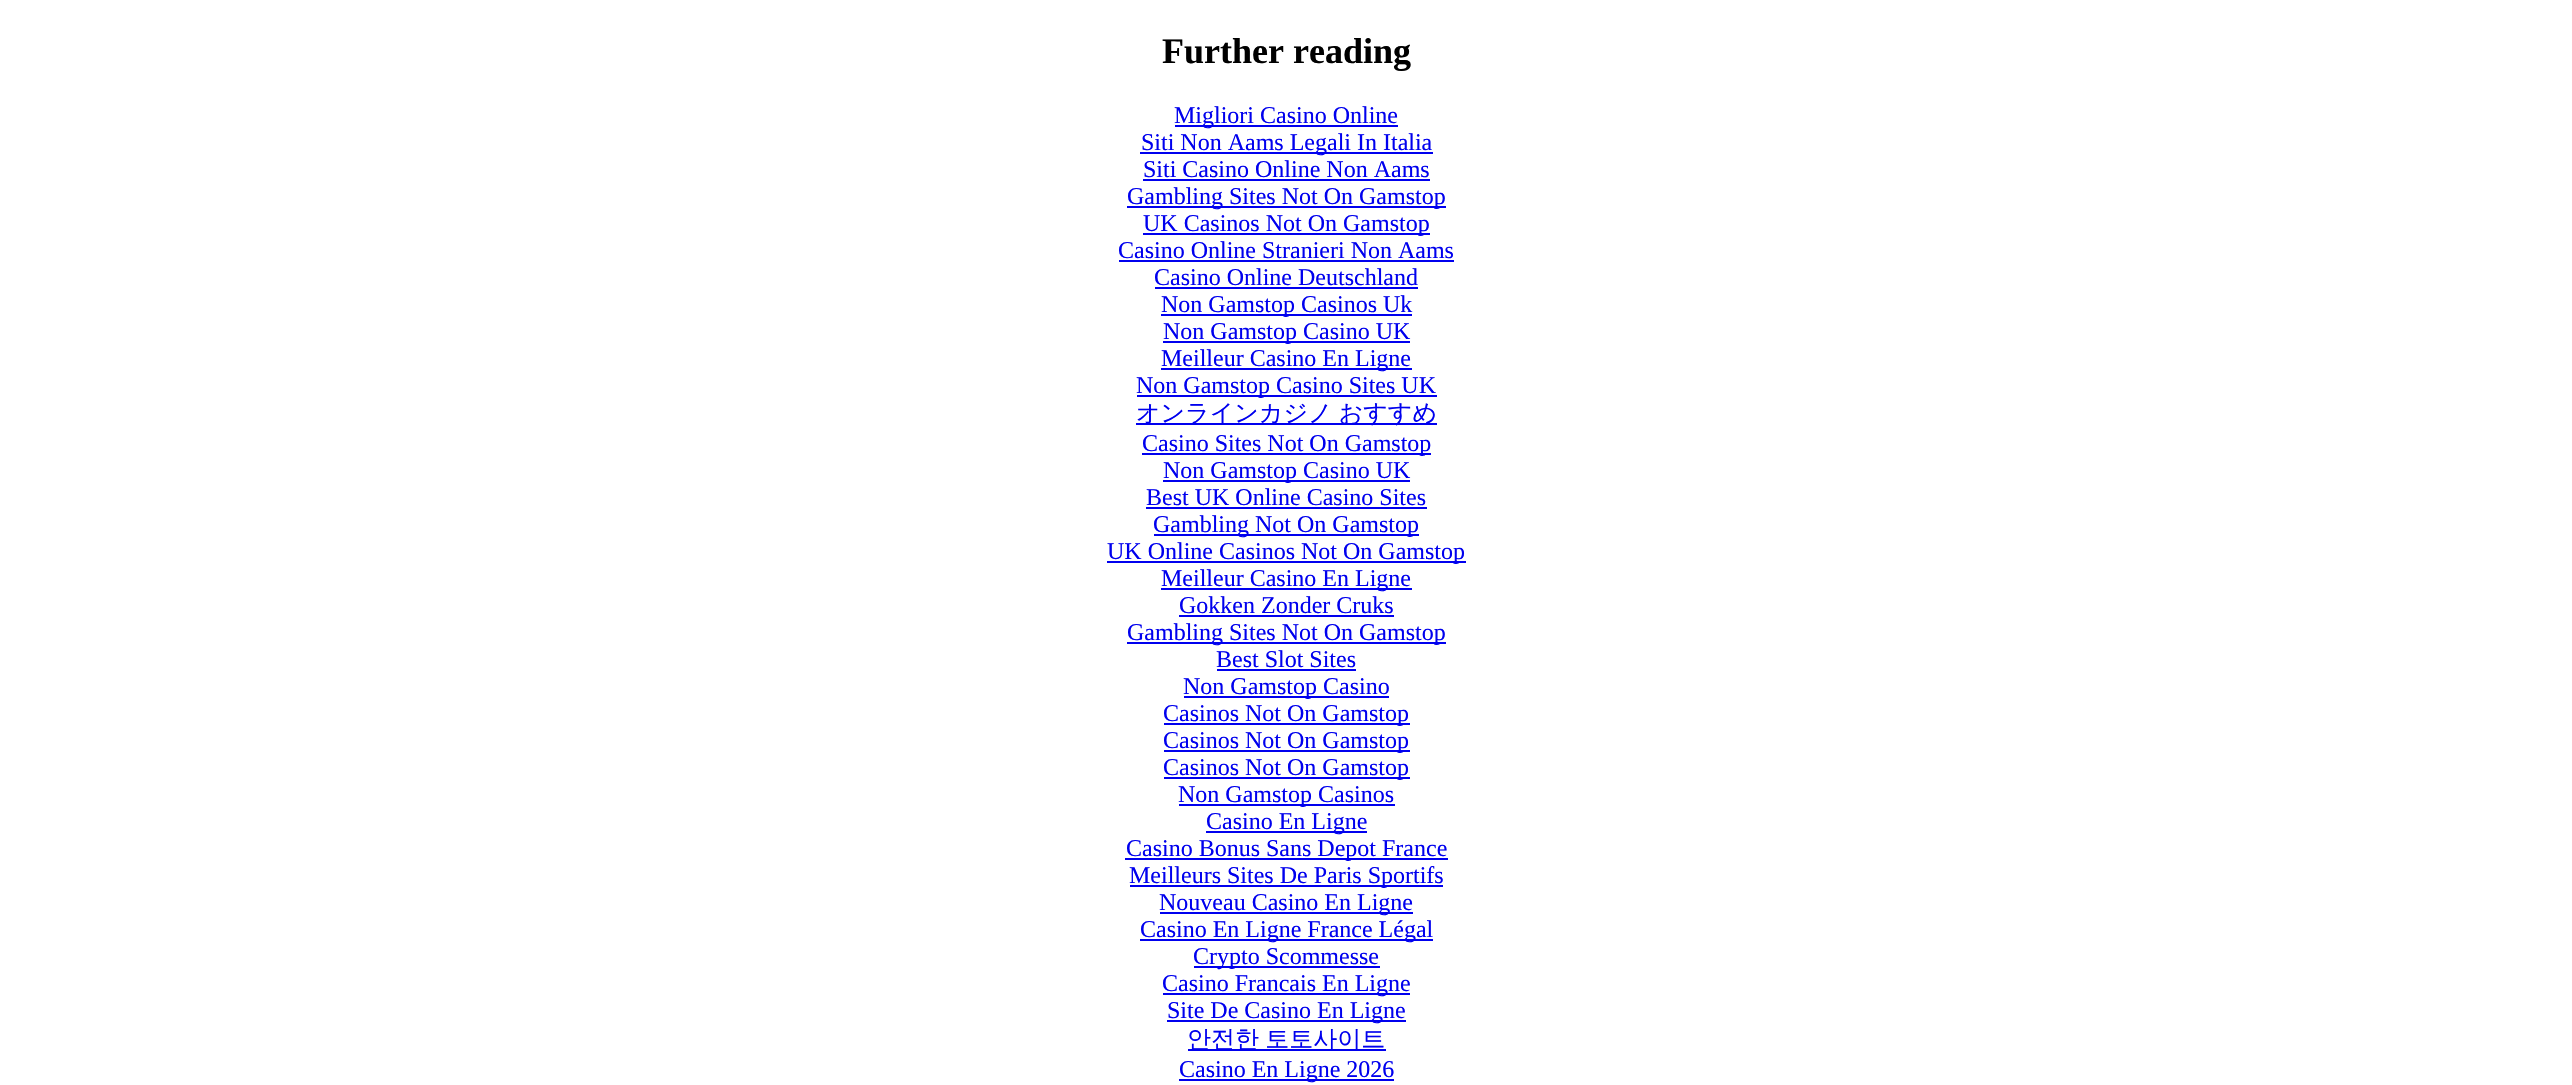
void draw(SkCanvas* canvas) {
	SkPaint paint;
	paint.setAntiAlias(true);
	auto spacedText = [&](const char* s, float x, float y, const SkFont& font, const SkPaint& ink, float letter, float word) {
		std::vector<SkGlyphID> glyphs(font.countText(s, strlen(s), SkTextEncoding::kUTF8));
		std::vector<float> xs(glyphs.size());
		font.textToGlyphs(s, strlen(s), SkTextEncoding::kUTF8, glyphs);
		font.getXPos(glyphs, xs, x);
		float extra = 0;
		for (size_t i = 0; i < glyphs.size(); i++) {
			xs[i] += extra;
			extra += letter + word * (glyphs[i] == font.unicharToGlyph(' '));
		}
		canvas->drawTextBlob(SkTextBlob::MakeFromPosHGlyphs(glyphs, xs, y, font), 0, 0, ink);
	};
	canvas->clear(0xffffffff);
	SkFont f1(fontMgr->matchFamilyStyle("Liberation Serif", SkFontStyle::Bold()), 36);
	f1.setSubpixel(true);
	paint.setColor(0xff000000);
	canvas->drawString("Further reading", 1162, 63, f1, paint);
	paint.setColor(0xff0000ee);
	canvas->drawRect(SkRect::MakeXYWH(1175, 125, 223, 2), paint);
	SkFont f2(fontMgr->matchFamilyStyle("Liberation Serif", SkFontStyle::Normal()), 24);
	f2.setSubpixel(true);
	canvas->drawString("Migliori Casino Online", 1174, 123, f2, paint);
	canvas->drawRect(SkRect::MakeXYWH(1140, 152, 293, 2), paint);
	canvas->drawString("Siti Non Aams Legali In Italia", 1141, 150, f2, paint);
	canvas->drawString("Siti Casino Online Non Aams", 1143, 177, f2, paint);
	canvas->drawRect(SkRect::MakeXYWH(1143, 179, 287, 2), paint);
	canvas->drawRect(SkRect::MakeXYWH(1127, 206, 319, 2), paint);
	canvas->drawString("Gambling Sites Not On Gamstop", 1127, 204, f2, paint);
	canvas->drawRect(SkRect::MakeXYWH(1143, 233, 287, 2), paint);
	canvas->drawString("UK Casinos Not On Gamstop", 1143, 231, f2, paint);
	canvas->drawString("Casino Online Stranieri Non Aams", 1118, 258, f2, paint);
	canvas->drawRect(SkRect::MakeXYWH(1119, 260, 335, 2), paint);
	canvas->drawString("Casino Online Deutschland", 1154, 285, f2, paint);
	canvas->drawRect(SkRect::MakeXYWH(1155, 287, 263, 2), paint);
	canvas->drawRect(SkRect::MakeXYWH(1161, 314, 251, 2), paint);
	canvas->drawString("Non Gamstop Casinos Uk", 1161, 312, f2, paint);
	canvas->drawRect(SkRect::MakeXYWH(1163, 341, 247, 2), paint);
	canvas->drawString("Non Gamstop Casino UK", 1163, 339, f2, paint);
	canvas->drawRect(SkRect::MakeXYWH(1161, 368, 251, 2), paint);
	canvas->drawString("Meilleur Casino En Ligne", 1161, 366, f2, paint);
	canvas->drawRect(SkRect::MakeXYWH(1137, 395, 300, 2), paint);
	canvas->drawString("Non Gamstop Casino Sites UK", 1136, 393, f2, paint);
	canvas->drawRect(SkRect::MakeXYWH(1136, 423, 301, 2), paint);
	SkFont f3(fontMgr->matchFamilyStyle("WenQuanYi Zen Hei", SkFontStyle(500, SkFontStyle::kNormal_Width, SkFontStyle::kUpright_Slant)), 24);
	f3.setSubpixel(true);
	spacedText("オンラインカジノ おすすめ", 1136, 421, f3, paint, 0, -1);
	canvas->drawRect(SkRect::MakeXYWH(1142, 453, 289, 2), paint);
	canvas->drawString("Casino Sites Not On Gamstop", 1142, 451, f2, paint);
	canvas->drawRect(SkRect::MakeXYWH(1163, 480, 247, 2), paint);
	canvas->drawString("Non Gamstop Casino UK", 1163, 478, f2, paint);
	canvas->drawString("Best UK Online Casino Sites", 1146, 505, f2, paint);
	canvas->drawRect(SkRect::MakeXYWH(1146, 507, 281, 2), paint);
	canvas->drawRect(SkRect::MakeXYWH(1154, 534, 265, 2), paint);
	canvas->drawString("Gambling Not On Gamstop", 1153, 532, f2, paint);
	canvas->drawRect(SkRect::MakeXYWH(1107, 561, 359, 2), paint);
	canvas->drawString("UK Online Casinos Not On Gamstop", 1107, 559, f2, paint);
	canvas->drawRect(SkRect::MakeXYWH(1161, 588, 251, 2), paint);
	canvas->drawString("Meilleur Casino En Ligne", 1161, 586, f2, paint);
	canvas->drawString("Gokken Zonder Cruks", 1179, 613, f2, paint);
	canvas->drawRect(SkRect::MakeXYWH(1179, 615, 215, 2), paint);
	canvas->drawRect(SkRect::MakeXYWH(1127, 642, 319, 2), paint);
	canvas->drawString("Gambling Sites Not On Gamstop", 1127, 640, f2, paint);
	canvas->drawString("Best Slot Sites", 1216, 667, f2, paint);
	canvas->drawRect(SkRect::MakeXYWH(1217, 669, 139, 2), paint);
	canvas->drawRect(SkRect::MakeXYWH(1184, 696, 205, 2), paint);
	canvas->drawString("Non Gamstop Casino", 1183, 694, f2, paint);
	canvas->drawRect(SkRect::MakeXYWH(1164, 723, 246, 2), paint);
	canvas->drawString("Casinos Not On Gamstop", 1163, 721, f2, paint);
	canvas->drawRect(SkRect::MakeXYWH(1164, 750, 246, 2), paint);
	canvas->drawString("Casinos Not On Gamstop", 1163, 748, f2, paint);
	canvas->drawRect(SkRect::MakeXYWH(1164, 777, 246, 2), paint);
	canvas->drawString("Casinos Not On Gamstop", 1163, 775, f2, paint);
	canvas->drawRect(SkRect::MakeXYWH(1179, 804, 216, 2), paint);
	canvas->drawString("Non Gamstop Casinos", 1178, 802, f2, paint);
	canvas->drawRect(SkRect::MakeXYWH(1206, 831, 161, 2), paint);
	canvas->drawString("Casino En Ligne", 1206, 829, f2, paint);
	canvas->drawRect(SkRect::MakeXYWH(1125, 858, 323, 2), paint);
	canvas->drawString("Casino Bonus Sans Depot France", 1126, 856, f2, paint);
	canvas->drawRect(SkRect::MakeXYWH(1130, 885, 313, 2), paint);
	canvas->drawString("Meilleurs Sites De Paris Sportifs", 1129, 883, f2, paint);
	canvas->drawRect(SkRect::MakeXYWH(1160, 912, 253, 2), paint);
	canvas->drawString("Nouveau Casino En Ligne", 1159, 910, f2, paint);
	canvas->drawRect(SkRect::MakeXYWH(1140, 939, 293, 2), paint);
	canvas->drawString("Casino En Ligne France Légal", 1140, 937, f2, paint);
	canvas->drawRect(SkRect::MakeXYWH(1194, 966, 186, 2), paint);
	canvas->drawString("Crypto Scommesse", 1193, 964, f2, paint);
	canvas->drawRect(SkRect::MakeXYWH(1163, 993, 247, 2), paint);
	canvas->drawString("Casino Francais En Ligne", 1162, 991, f2, paint);
	canvas->drawRect(SkRect::MakeXYWH(1167, 1020, 239, 2), paint);
	canvas->drawString("Site De Casino En Ligne", 1167, 1018, f2, paint);
	canvas->drawRect(SkRect::MakeXYWH(1188, 1049, 198, 2), paint);
	spacedText("안전한 토토사이트", 1187, 1047, f3, paint, 0, -1);
	canvas->drawRect(SkRect::MakeXYWH(1179, 1079, 215, 2), paint);
	canvas->drawString("Casino En Ligne 2026", 1179, 1077, f2, paint);
}
